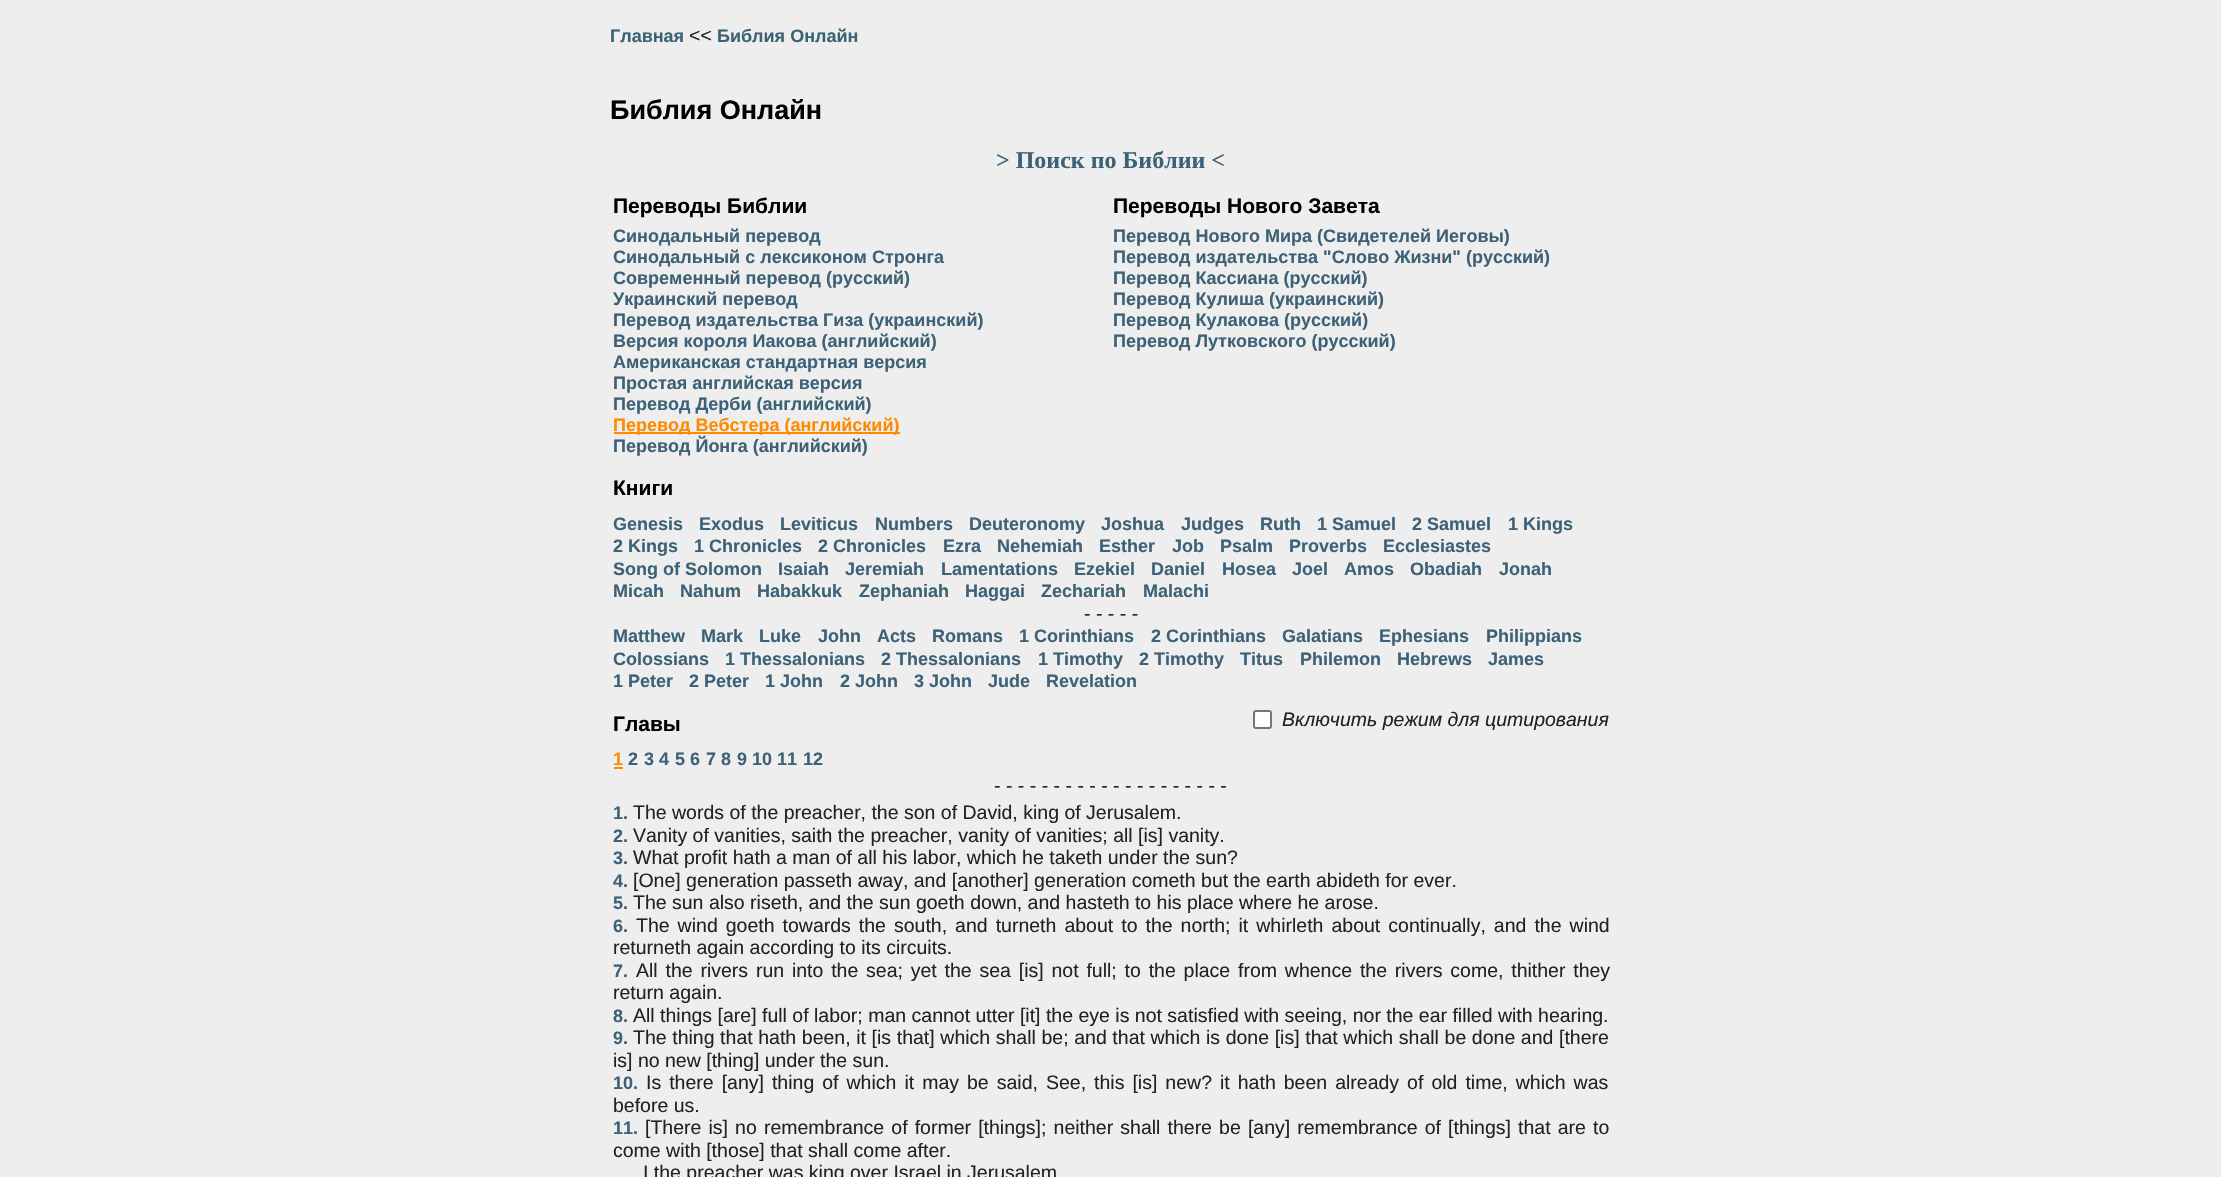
void draw(SkCanvas* canvas) {
	SkPaint paint;
	paint.setAntiAlias(true);
	auto spacedText = [&](const char* s, float x, float y, const SkFont& font, const SkPaint& ink, float letter, float word) {
		std::vector<SkGlyphID> glyphs(font.countText(s, strlen(s), SkTextEncoding::kUTF8));
		std::vector<float> xs(glyphs.size());
		font.textToGlyphs(s, strlen(s), SkTextEncoding::kUTF8, glyphs);
		font.getXPos(glyphs, xs, x);
		float extra = 0;
		for (size_t i = 0; i < glyphs.size(); i++) {
			xs[i] += extra;
			extra += letter + word * (glyphs[i] == font.unicharToGlyph(' '));
		}
		canvas->drawTextBlob(SkTextBlob::MakeFromPosHGlyphs(glyphs, xs, y, font), 0, 0, ink);
	};
	canvas->clear(0xffeeeeee);
	SkFont f1(fontMgr->matchFamilyStyle("Liberation Sans", SkFontStyle::Bold()), 18);
	f1.setSubpixel(true);
	paint.setColor(0xff3d6177);
	canvas->drawString("Главная", 610, 42, f1, paint);
	SkFont f2(fontMgr->matchFamilyStyle("Liberation Sans", SkFontStyle::Normal()), 19.5);
	f2.setSubpixel(true);
	paint.setColor(0xff222222);
	canvas->drawString("<<", 689, 42, f2, paint);
	paint.setColor(0xff3d6177);
	canvas->drawString("Библия Онлайн", 717, 42, f1, paint);
	SkFont f3(fontMgr->matchFamilyStyle("Liberation Sans", SkFontStyle::Bold()), 27);
	f3.setSubpixel(true);
	paint.setColor(0xff000000);
	canvas->drawString("Библия Онлайн", 610, 119, f3, paint);
	SkFont f4(fontMgr->matchFamilyStyle("Liberation Serif", SkFontStyle::Bold()), 24);
	f4.setSubpixel(true);
	paint.setColor(0xff3d6177);
	canvas->drawString("> Поиск по Библии <", 996, 168, f4, paint);
	SkFont f5(fontMgr->matchFamilyStyle("Liberation Sans", SkFontStyle::Bold()), 21);
	f5.setSubpixel(true);
	paint.setColor(0xff000000);
	canvas->drawString("Переводы Библии", 613, 213, f5, paint);
	paint.setColor(0xff3d6177);
	canvas->drawString("Синодальный перевод", 613, 242, f1, paint);
	canvas->drawString("Синодальный с лексиконом Стронга", 613, 263, f1, paint);
	canvas->drawString("Современный перевод (русский)", 613, 284, f1, paint);
	canvas->drawString("Украинский перевод", 613, 305, f1, paint);
	canvas->drawString("Перевод издательства Гиза (украинский)", 613, 326, f1, paint);
	canvas->drawString("Версия короля Иакова (английский)", 613, 347, f1, paint);
	canvas->drawString("Американская стандартная версия", 613, 368, f1, paint);
	canvas->drawString("Простая английская версия", 613, 389, f1, paint);
	canvas->drawString("Перевод Дерби (английский)", 613, 410, f1, paint);
	paint.setColor(0xffff8a00);
	canvas->drawRect(SkRect::MakeXYWH(614, 432, 286, 2), paint);
	canvas->drawString("Перевод Вебстера (английский)", 613, 431, f1, paint);
	paint.setColor(0xff3d6177);
	canvas->drawString("Перевод Йонга (английский)", 613, 452, f1, paint);
	paint.setColor(0xff000000);
	canvas->drawString("Переводы Нового Завета", 1113, 213, f5, paint);
	paint.setColor(0xff3d6177);
	canvas->drawString("Перевод Нового Мира (Свидетелей Иеговы)", 1113, 242, f1, paint);
	canvas->drawString("Перевод издательства \"Слово Жизни\" (русский)", 1113, 263, f1, paint);
	canvas->drawString("Перевод Кассиана (русский)", 1113, 284, f1, paint);
	canvas->drawString("Перевод Кулиша (украинский)", 1113, 305, f1, paint);
	canvas->drawString("Перевод Кулакова (русский)", 1113, 326, f1, paint);
	canvas->drawString("Перевод Лутковского (русский)", 1113, 347, f1, paint);
	paint.setColor(0xff000000);
	canvas->drawString("Книги", 613, 495, f5, paint);
	paint.setColor(0xff3d6177);
	canvas->drawString("Genesis", 613, 530, f1, paint);
	canvas->drawString("Exodus", 699, 530, f1, paint);
	canvas->drawString("Leviticus", 780, 530, f1, paint);
	canvas->drawString("Numbers", 875, 530, f1, paint);
	canvas->drawString("Deuteronomy", 969, 530, f1, paint);
	canvas->drawString("Joshua", 1101, 530, f1, paint);
	canvas->drawString("Judges", 1181, 530, f1, paint);
	canvas->drawString("Ruth", 1260, 530, f1, paint);
	canvas->drawString("1 Samuel", 1317, 530, f1, paint);
	canvas->drawString("2 Samuel", 1412, 530, f1, paint);
	canvas->drawString("1 Kings", 1508, 530, f1, paint);
	canvas->drawString("2 Kings", 613, 552, f1, paint);
	canvas->drawString("1 Chronicles", 694, 552, f1, paint);
	canvas->drawString("2 Chronicles", 818, 552, f1, paint);
	canvas->drawString("Ezra", 943, 552, f1, paint);
	canvas->drawString("Nehemiah", 997, 552, f1, paint);
	canvas->drawString("Esther", 1099, 552, f1, paint);
	canvas->drawString("Job", 1172, 552, f1, paint);
	canvas->drawString("Psalm", 1220, 552, f1, paint);
	canvas->drawString("Proverbs", 1289, 552, f1, paint);
	canvas->drawString("Ecclesiastes", 1383, 552, f1, paint);
	canvas->drawString("Song of Solomon", 613, 575, f1, paint);
	canvas->drawString("Isaiah", 778, 575, f1, paint);
	canvas->drawString("Jeremiah", 845, 575, f1, paint);
	canvas->drawString("Lamentations", 941, 575, f1, paint);
	canvas->drawString("Ezekiel", 1074, 575, f1, paint);
	canvas->drawString("Daniel", 1151, 575, f1, paint);
	canvas->drawString("Hosea", 1222, 575, f1, paint);
	canvas->drawString("Joel", 1292, 575, f1, paint);
	canvas->drawString("Amos", 1344, 575, f1, paint);
	canvas->drawString("Obadiah", 1410, 575, f1, paint);
	canvas->drawString("Jonah", 1499, 575, f1, paint);
	canvas->drawString("Micah", 613, 597, f1, paint);
	canvas->drawString("Nahum", 680, 597, f1, paint);
	canvas->drawString("Habakkuk", 757, 597, f1, paint);
	canvas->drawString("Zephaniah", 859, 597, f1, paint);
	canvas->drawString("Haggai", 965, 597, f1, paint);
	canvas->drawString("Zechariah", 1041, 597, f1, paint);
	canvas->drawString("Malachi", 1143, 597, f1, paint);
	paint.setColor(0xff222222);
	canvas->drawString("- - - - -", 1084, 620, f2, paint);
	paint.setColor(0xff3d6177);
	canvas->drawString("Matthew", 613, 642, f1, paint);
	canvas->drawString("Mark", 701, 642, f1, paint);
	canvas->drawString("Luke", 759, 642, f1, paint);
	canvas->drawString("John", 818, 642, f1, paint);
	canvas->drawString("Acts", 877, 642, f1, paint);
	canvas->drawString("Romans", 932, 642, f1, paint);
	canvas->drawString("1 Corinthians", 1019, 642, f1, paint);
	canvas->drawString("2 Corinthians", 1151, 642, f1, paint);
	canvas->drawString("Galatians", 1282, 642, f1, paint);
	canvas->drawString("Ephesians", 1379, 642, f1, paint);
	canvas->drawString("Philippians", 1486, 642, f1, paint);
	canvas->drawString("Colossians", 613, 665, f1, paint);
	canvas->drawString("1 Thessalonians", 725, 665, f1, paint);
	canvas->drawString("2 Thessalonians", 881, 665, f1, paint);
	canvas->drawString("1 Timothy", 1038, 665, f1, paint);
	canvas->drawString("2 Timothy", 1139, 665, f1, paint);
	canvas->drawString("Titus", 1240, 665, f1, paint);
	canvas->drawString("Philemon", 1300, 665, f1, paint);
	canvas->drawString("Hebrews", 1397, 665, f1, paint);
	canvas->drawString("James", 1488, 665, f1, paint);
	canvas->drawString("1 Peter", 613, 687, f1, paint);
	canvas->drawString("2 Peter", 689, 687, f1, paint);
	canvas->drawString("1 John", 765, 687, f1, paint);
	canvas->drawString("2 John", 840, 687, f1, paint);
	canvas->drawString("3 John", 914, 687, f1, paint);
	canvas->drawString("Jude", 988, 687, f1, paint);
	canvas->drawString("Revelation", 1046, 687, f1, paint);
	paint.setColor(0xff000000);
	canvas->drawString("Главы", 613, 731, f5, paint);
	paint.setColor(0xffffffff);
	canvas->drawRoundRect(SkRect::MakeXYWH(1254, 711, 17, 17), 2, 2, paint);
	paint.setStroke(true);
	paint.setStrokeWidth(2);
	paint.setColor(0xff767676);
	canvas->drawRoundRect(SkRect::MakeXYWH(1254, 711, 17, 17), 2, 2, paint);
	SkFont f6(fontMgr->matchFamilyStyle("Liberation Sans", SkFontStyle::Italic()), 19.5);
	f6.setSubpixel(true);
	paint.setStroke(false);
	paint.setColor(0xff222222);
	canvas->drawString("Включить режим для цитирования", 1282, 726, f6, paint);
	paint.setColor(0xffff8a00);
	canvas->drawString("1", 613, 765, f1, paint);
	canvas->drawRect(SkRect::MakeXYWH(614, 767, 9, 2), paint);
	paint.setColor(0xff3d6177);
	canvas->drawString("2", 628, 765, f1, paint);
	canvas->drawString("3", 644, 765, f1, paint);
	canvas->drawString("4", 659, 765, f1, paint);
	canvas->drawString("5", 675, 765, f1, paint);
	canvas->drawString("6", 690, 765, f1, paint);
	canvas->drawString("7", 706, 765, f1, paint);
	canvas->drawString("8", 721, 765, f1, paint);
	canvas->drawString("9", 737, 765, f1, paint);
	canvas->drawString("10", 752, 765, f1, paint);
	canvas->drawString("11", 777, 765, f1, paint);
	canvas->drawString("12", 803, 765, f1, paint);
	paint.setColor(0xff222222);
	canvas->drawString("- - - - - - - - - - - - - - - - - - - -", 994, 792, f2, paint);
	paint.setColor(0xff3d6177);
	canvas->drawString("1.", 613, 819, f1, paint);
	paint.setColor(0xff222222);
	canvas->drawString("The words of the preacher, the son of David, king of Jerusalem.", 633, 819, f2, paint);
	paint.setColor(0xff3d6177);
	canvas->drawString("2.", 613, 842, f1, paint);
	paint.setColor(0xff222222);
	canvas->drawString("Vanity of vanities, saith the preacher, vanity of vanities; all [is] vanity.", 633, 842, f2, paint);
	paint.setColor(0xff3d6177);
	canvas->drawString("3.", 613, 864, f1, paint);
	paint.setColor(0xff222222);
	canvas->drawString("What profit hath a man of all his labor, which he taketh under the sun?", 633, 864, f2, paint);
	paint.setColor(0xff3d6177);
	canvas->drawString("4.", 613, 887, f1, paint);
	paint.setColor(0xff222222);
	canvas->drawString("[One] generation passeth away, and [another] generation cometh but the earth abideth for ever.", 633, 887, f2, paint);
	paint.setColor(0xff3d6177);
	canvas->drawString("5.", 613, 909, f1, paint);
	paint.setColor(0xff222222);
	canvas->drawString("The sun also riseth, and the sun goeth down, and hasteth to his place where he arose.", 633, 909, f2, paint);
	paint.setColor(0xff3d6177);
	canvas->drawString("6.", 613, 932, f1, paint);
	paint.setColor(0xff222222);
	spacedText("The wind goeth towards the south, and turneth about to the north; it whirleth about continually, and the wind", 636, 932, f2, paint, 0, 2.6);
	canvas->drawString("returneth again according to its circuits.", 613, 954, f2, paint);
	paint.setColor(0xff3d6177);
	canvas->drawString("7.", 613, 977, f1, paint);
	paint.setColor(0xff222222);
	spacedText("All the rivers run into the sea; yet the sea [is] not full; to the place from whence the rivers come, thither they", 636, 977, f2, paint, 0, 2.4);
	canvas->drawString("return again.", 613, 999, f2, paint);
	paint.setColor(0xff3d6177);
	canvas->drawString("8.", 613, 1022, f1, paint);
	paint.setColor(0xff222222);
	canvas->drawString("All things [are] full of labor; man cannot utter [it] the eye is not satisfied with seeing, nor the ear filled with hearing.", 633, 1022, f2, paint);
	paint.setColor(0xff3d6177);
	canvas->drawString("9.", 613, 1044, f1, paint);
	paint.setColor(0xff222222);
	spacedText("The thing that hath been, it [is that] which shall be; and that which is done [is] that which shall be done and [there", 633, 1044, f2, paint, 0, 0.2);
	canvas->drawString("is] no new [thing] under the sun.", 613, 1067, f2, paint);
	paint.setColor(0xff3d6177);
	canvas->drawString("10.", 613, 1089, f1, paint);
	paint.setColor(0xff222222);
	spacedText("Is there [any] thing of which it may be said, See, this [is] new? it hath been already of old time, which was", 646, 1089, f2, paint, 0, 2.6);
	canvas->drawString("before us.", 613, 1112, f2, paint);
	paint.setColor(0xff3d6177);
	canvas->drawString("11.", 613, 1134, f1, paint);
	paint.setColor(0xff222222);
	spacedText("[There is] no remembrance of former [things]; neither shall there be [any] remembrance of [things] that are to", 645, 1134, f2, paint, 0, 1.7);
	canvas->drawString("come with [those] that shall come after.", 613, 1157, f2, paint);
	canvas->drawString("I the preacher was king over Israel in Jerusalem", 643, 1179, f2, paint);
}
